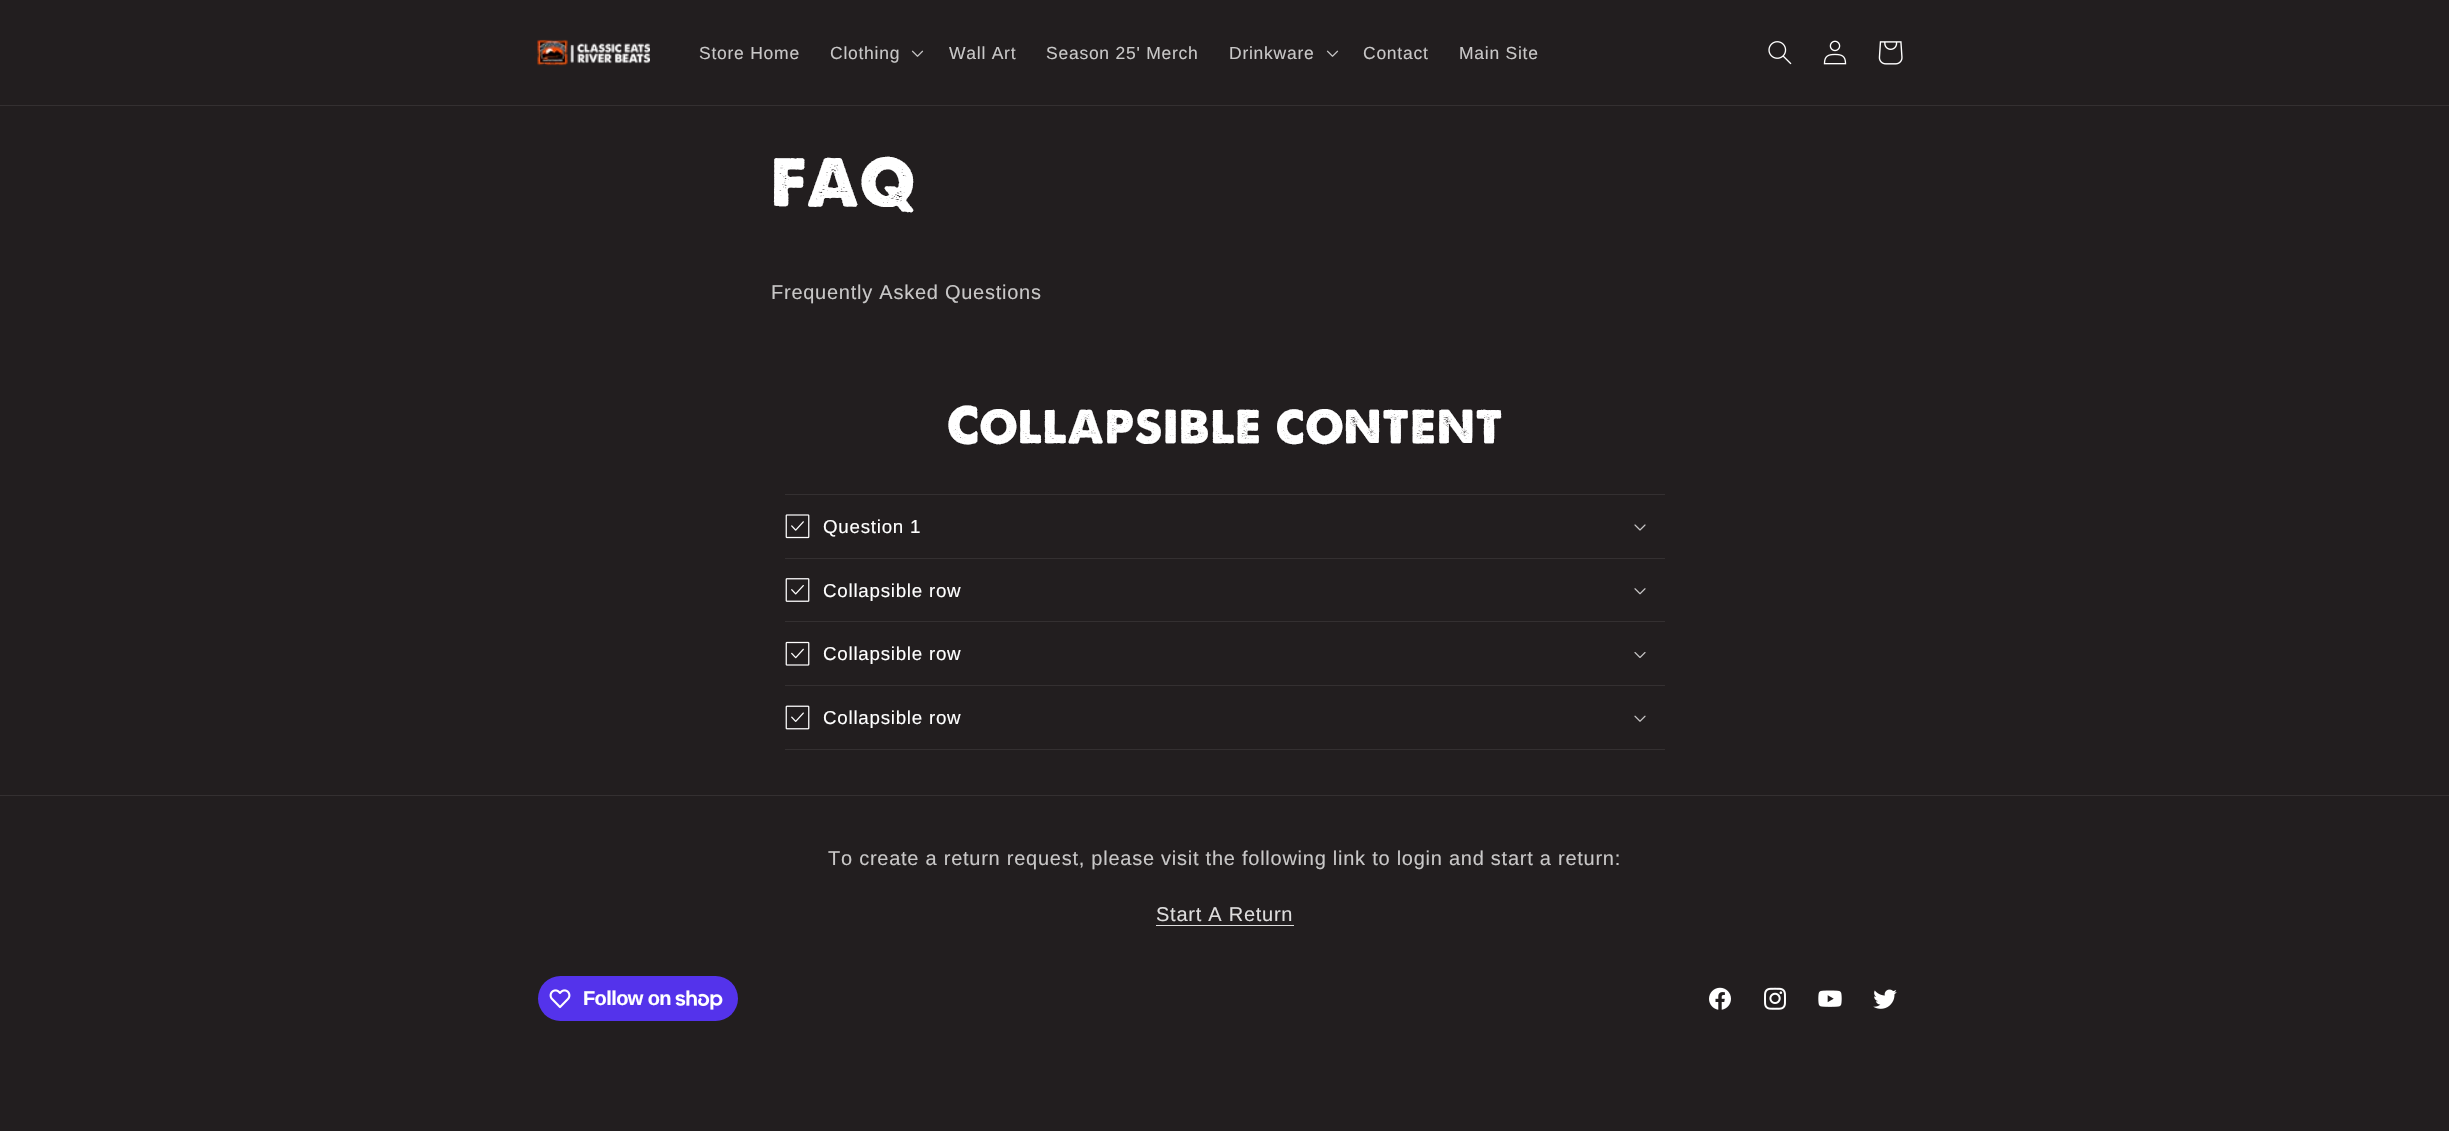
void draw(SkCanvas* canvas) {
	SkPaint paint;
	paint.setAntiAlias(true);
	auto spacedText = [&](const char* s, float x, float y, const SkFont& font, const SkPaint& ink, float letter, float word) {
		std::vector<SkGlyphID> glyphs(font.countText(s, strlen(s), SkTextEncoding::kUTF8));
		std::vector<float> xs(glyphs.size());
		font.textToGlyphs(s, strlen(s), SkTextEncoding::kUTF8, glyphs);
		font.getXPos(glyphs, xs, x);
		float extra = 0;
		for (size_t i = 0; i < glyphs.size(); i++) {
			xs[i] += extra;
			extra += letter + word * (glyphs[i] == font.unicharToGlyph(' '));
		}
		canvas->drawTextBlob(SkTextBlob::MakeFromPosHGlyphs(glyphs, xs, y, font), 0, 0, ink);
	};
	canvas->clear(0xff221e1f);
	paint.setColor(0xff343031);
	canvas->drawRect(SkRect::MakeXYWH(0, 105, 2449, 1), paint);
	canvas->drawImageRect(SkImages::DeferredFromEncodedData(SkData::MakeFromFileName("img1.png")), SkRect::MakeXYWH(537, 39, 113, 27), SkSamplingOptions());
	SkFont f1(fontMgr->matchFamilyStyle("Liberation Sans", SkFontStyle::Normal()), 17.5);
	f1.setSubpixel(true);
	paint.setColor(0xffc8c7c7);
	spacedText("Store Home", 699, 59, f1, paint, 0.75, 0);
	spacedText("Clothing", 830, 59, f1, paint, 0.75, 0);
	canvas->drawImageRect(SkImages::DeferredFromEncodedData(SkData::MakeFromFileName("img2.png")), SkRect::MakeXYWH(911, 50, 13, 7), SkSamplingOptions());
	spacedText("Wall Art", 949, 59, f1, paint, 0.75, 0);
	spacedText("Season 25' Merch", 1046, 59, f1, paint, 0.75, 0);
	spacedText("Drinkware", 1229, 59, f1, paint, 0.75, 0);
	canvas->drawImageRect(SkImages::DeferredFromEncodedData(SkData::MakeFromFileName("img2.png")), SkRect::MakeXYWH(1326, 50, 13, 7), SkSamplingOptions());
	spacedText("Contact", 1363, 59, f1, paint, 0.75, 0);
	spacedText("Main Site", 1459, 59, f1, paint, 0.75, 0);
	canvas->drawImageRect(SkImages::DeferredFromEncodedData(SkData::MakeFromFileName("img3.png")), SkRect::MakeXYWH(1768, 41, 24, 24), SkSamplingOptions());
	canvas->drawImageRect(SkImages::DeferredFromEncodedData(SkData::MakeFromFileName("img4.png")), SkRect::MakeXYWH(1823, 40, 24, 25), SkSamplingOptions());
	canvas->drawImageRect(SkImages::DeferredFromEncodedData(SkData::MakeFromFileName("img5.png")), SkRect::MakeXYWH(1878, 41, 25, 24), SkSamplingOptions());
	SkFont f2(fontMgr->matchFamilyStyle("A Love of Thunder", SkFontStyle::Normal()), 65);
	f2.setSubpixel(true);
	paint.setColor(0xffffffff);
	spacedText("FAQ", 771, 206, f2, paint, 0.75, 0);
	SkFont f3(fontMgr->matchFamilyStyle("Liberation Sans", SkFontStyle::Normal()), 20);
	f3.setSubpixel(true);
	paint.setColor(0xffc8c7c7);
	spacedText("Frequently Asked Questions", 771, 299, f3, paint, 0.75, 0);
	SkFont f4(fontMgr->matchFamilyStyle("A Love of Thunder", SkFontStyle::Normal()), 50);
	f4.setSubpixel(true);
	paint.setColor(0xffffffff);
	spacedText("Collapsible content", 947, 443, f4, paint, 0.75, 0);
	paint.setColor(0xff343031);
	canvas->drawRect(SkRect::MakeXYWH(785, 494, 880, 1), paint);
	canvas->drawRect(SkRect::MakeXYWH(785, 558, 880, 1), paint);
	canvas->drawImageRect(SkImages::DeferredFromEncodedData(SkData::MakeFromFileName("img6.png")), SkRect::MakeXYWH(785, 514, 25, 25), SkSamplingOptions());
	SkFont f5(fontMgr->matchFamilyStyle("Liberation Sans", SkFontStyle::Normal()), 18.75);
	f5.setSubpixel(true);
	paint.setColor(0xffffffff);
	spacedText("Question 1", 823, 533, f5, paint, 0.75, 0);
	canvas->drawImageRect(SkImages::DeferredFromEncodedData(SkData::MakeFromFileName("img7.png")), SkRect::MakeXYWH(1634, 524, 12, 7), SkSamplingOptions());
	paint.setColor(0xff343031);
	canvas->drawRect(SkRect::MakeXYWH(785, 621, 880, 1), paint);
	canvas->drawImageRect(SkImages::DeferredFromEncodedData(SkData::MakeFromFileName("img8.png")), SkRect::MakeXYWH(785, 578, 25, 24), SkSamplingOptions());
	paint.setColor(0xffffffff);
	spacedText("Collapsible row", 823, 597, f5, paint, 0.75, 0);
	canvas->drawImageRect(SkImages::DeferredFromEncodedData(SkData::MakeFromFileName("img9.png")), SkRect::MakeXYWH(1634, 588, 12, 7), SkSamplingOptions());
	paint.setColor(0xff343031);
	canvas->drawRect(SkRect::MakeXYWH(785, 685, 880, 1), paint);
	canvas->drawImageRect(SkImages::DeferredFromEncodedData(SkData::MakeFromFileName("img10.png")), SkRect::MakeXYWH(785, 641, 25, 25), SkSamplingOptions());
	paint.setColor(0xffffffff);
	spacedText("Collapsible row", 823, 660, f5, paint, 0.75, 0);
	canvas->drawImageRect(SkImages::DeferredFromEncodedData(SkData::MakeFromFileName("img11.png")), SkRect::MakeXYWH(1634, 652, 12, 6), SkSamplingOptions());
	paint.setColor(0xff343031);
	canvas->drawRect(SkRect::MakeXYWH(785, 749, 880, 1), paint);
	canvas->drawImageRect(SkImages::DeferredFromEncodedData(SkData::MakeFromFileName("img12.png")), SkRect::MakeXYWH(785, 705, 25, 25), SkSamplingOptions());
	paint.setColor(0xffffffff);
	spacedText("Collapsible row", 823, 724, f5, paint, 0.75, 0);
	canvas->drawImageRect(SkImages::DeferredFromEncodedData(SkData::MakeFromFileName("img13.png")), SkRect::MakeXYWH(1634, 715, 12, 7), SkSamplingOptions());
	paint.setColor(0xff343031);
	canvas->drawRect(SkRect::MakeXYWH(0, 795, 2449, 1), paint);
	paint.setColor(0xffc8c7c7);
	spacedText("To create a return request, please visit the following link to login and start a return:", 828, 865, f3, paint, 0.75, 0);
	paint.setColor(0xffdedddd);
	spacedText("Start A Return", 1156, 921, f3, paint, 0.75, 0);
	canvas->drawRect(SkRect::MakeXYWH(1156, 925, 138, 1), paint);
	paint.setColor(0xff5433eb);
	canvas->drawRoundRect(SkRect::MakeXYWH(538, 976, 200, 45), 22.5, 22.5, paint);
	canvas->drawImageRect(SkImages::DeferredFromEncodedData(SkData::MakeFromFileName("img14.png")), SkRect::MakeXYWH(549, 989, 22, 20), SkSamplingOptions());
	SkFont f6(fontMgr->matchFamilyStyle("Liberation Sans", SkFontStyle::Bold()), 20);
	f6.setSubpixel(true);
	paint.setColor(0xffffffff);
	spacedText("Follow on", 583, 1005, f6, paint, -0.6, 0);
	canvas->drawImageRect(SkImages::DeferredFromEncodedData(SkData::MakeFromFileName("img15.png")), SkRect::MakeXYWH(675, 990, 48, 20), SkSamplingOptions());
	canvas->drawImageRect(SkImages::DeferredFromEncodedData(SkData::MakeFromFileName("img16.png")), SkRect::MakeXYWH(1709, 987, 22, 23), SkSamplingOptions());
	canvas->drawImageRect(SkImages::DeferredFromEncodedData(SkData::MakeFromFileName("img17.png")), SkRect::MakeXYWH(1764, 987, 22, 23), SkSamplingOptions());
	canvas->drawImageRect(SkImages::DeferredFromEncodedData(SkData::MakeFromFileName("img18.png")), SkRect::MakeXYWH(1818, 990, 24, 17), SkSamplingOptions());
	canvas->drawImageRect(SkImages::DeferredFromEncodedData(SkData::MakeFromFileName("img19.png")), SkRect::MakeXYWH(1873, 989, 24, 20), SkSamplingOptions());
}
